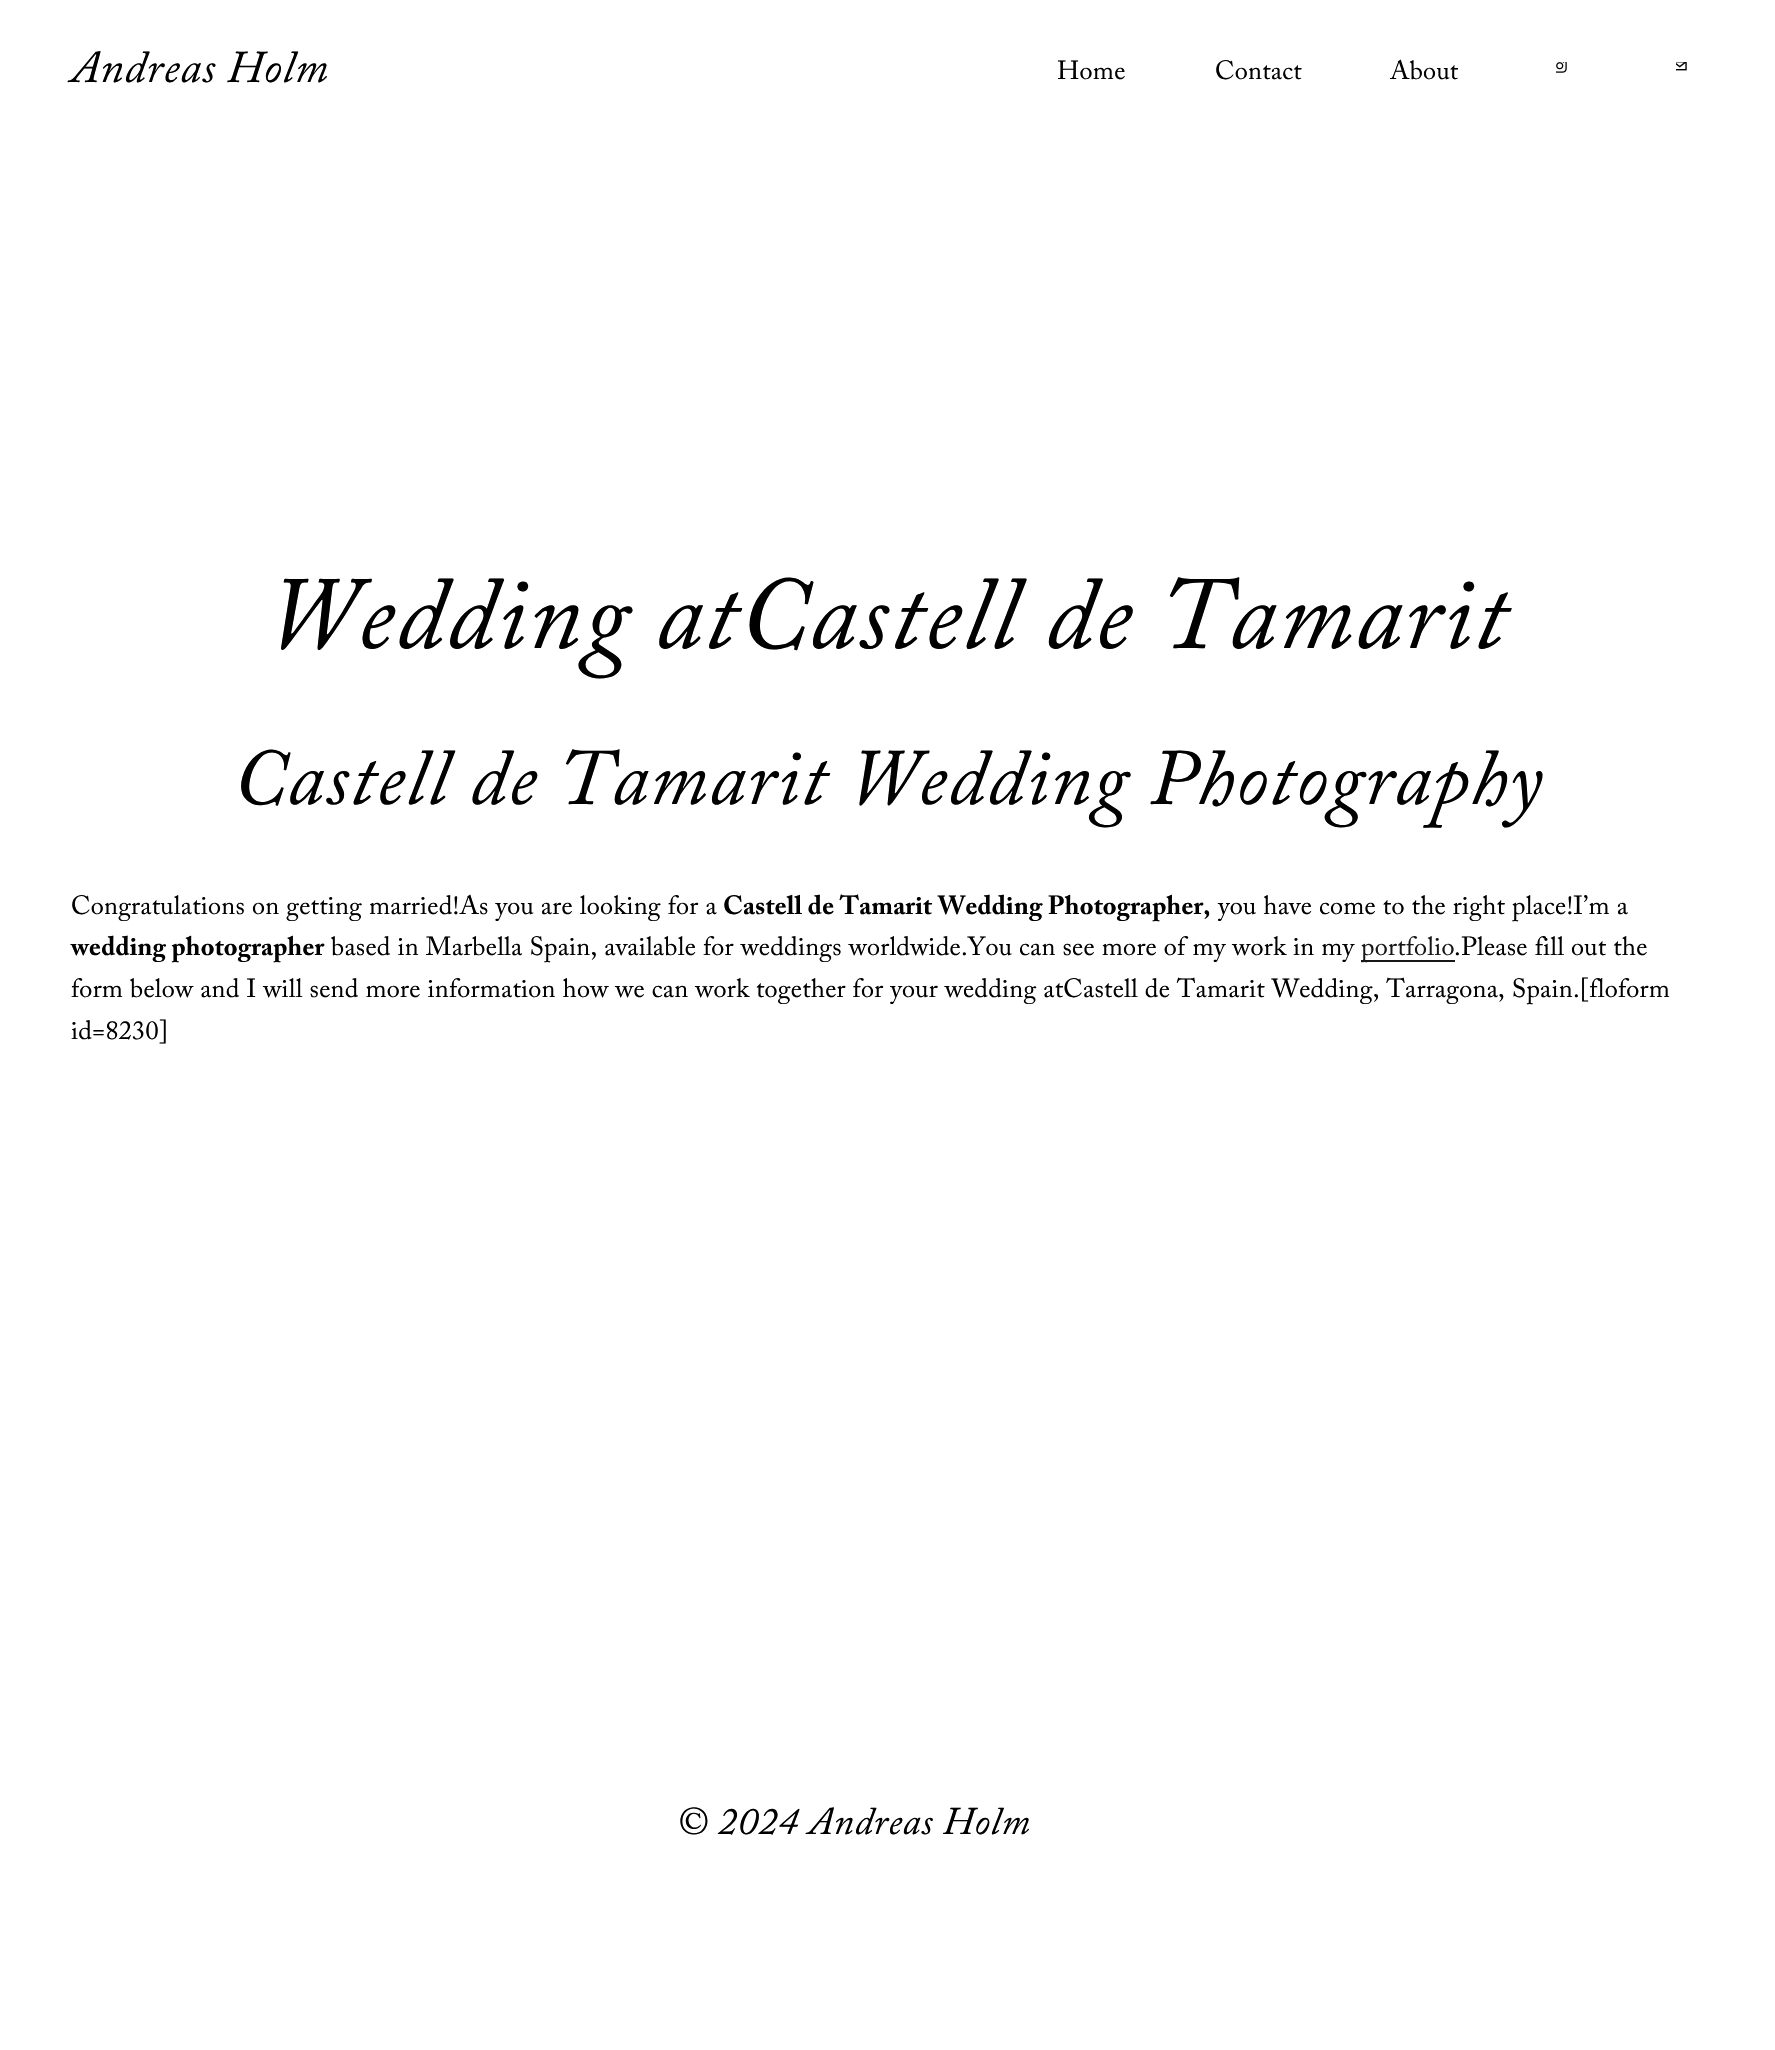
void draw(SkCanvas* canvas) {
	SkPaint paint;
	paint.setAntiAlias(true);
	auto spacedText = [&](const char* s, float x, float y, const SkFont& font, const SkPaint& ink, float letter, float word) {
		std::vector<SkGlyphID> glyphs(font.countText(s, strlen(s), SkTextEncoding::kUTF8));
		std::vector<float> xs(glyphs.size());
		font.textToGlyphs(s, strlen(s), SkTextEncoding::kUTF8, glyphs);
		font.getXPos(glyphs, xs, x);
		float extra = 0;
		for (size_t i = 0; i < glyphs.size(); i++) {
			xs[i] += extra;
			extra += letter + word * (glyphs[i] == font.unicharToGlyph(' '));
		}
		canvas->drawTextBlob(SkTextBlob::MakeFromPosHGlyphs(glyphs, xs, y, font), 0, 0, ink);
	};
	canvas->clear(0xffffffff);
	SkFont f1(fontMgr->matchFamilyStyle("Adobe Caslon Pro", SkFontStyle::Italic()), 45.25);
	f1.setSubpixel(true);
	paint.setColor(0xff000000);
	spacedText("Andreas Holm", 71, 82, f1, paint, 0.9, 0);
	SkFont f2(fontMgr->matchFamilyStyle("Adobe Caslon Pro", SkFontStyle::Normal()), 26.13);
	f2.setSubpixel(true);
	spacedText("Home", 1057, 79, f2, paint, 0.26, 0);
	spacedText("Contact", 1215, 79, f2, paint, 0.26, 0);
	spacedText("About", 1390, 79, f2, paint, 0.26, 0);
	canvas->drawImageRect(SkImages::DeferredFromEncodedData(SkData::MakeFromFileName("img1.png")), SkRect::MakeXYWH(1556, 62, 11, 11), SkSamplingOptions());
	canvas->drawImageRect(SkImages::DeferredFromEncodedData(SkData::MakeFromFileName("img2.png")), SkRect::MakeXYWH(1676, 62, 11, 9), SkSamplingOptions());
	SkFont f3(fontMgr->matchFamilyStyle("Adobe Caslon Pro", SkFontStyle::Italic()), 102.8);
	f3.setSubpixel(true);
	spacedText("Wedding atCastell de Tamarit", 266, 648, f3, paint, 2.05, 0);
	SkFont f4(fontMgr->matchFamilyStyle("Adobe Caslon Pro", SkFontStyle::Italic()), 79.4);
	f4.setSubpixel(true);
	spacedText("Castell de Tamarit Wedding Photography", 233, 804, f4, paint, 1.6, 0);
	spacedText("Congratulations on getting married!As you are looking for a", 71, 914, f2, paint, 0.26, 0);
	SkFont f5(fontMgr->matchFamilyStyle("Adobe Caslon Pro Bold", SkFontStyle::Bold()), 26.13);
	f5.setSubpixel(true);
	spacedText("Castell de Tamarit Wedding Photographer,", 723, 914, f5, paint, 0.26, 0);
	spacedText("you have come to the right place!I’m a", 1218, 914, f2, paint, 0.26, 0);
	spacedText("wedding photographer", 71, 955, f5, paint, 0.26, 0);
	spacedText("based in Marbella Spain, available for weddings worldwide.You can see more of my work in my", 331, 955, f2, paint, 0.26, 0);
	paint.setColor(0xff171717);
	canvas->drawRect(SkRect::MakeXYWH(1361, 960, 94, 2), paint);
	spacedText("portfolio", 1361, 955, f2, paint, 0.26, 0);
	paint.setColor(0xff000000);
	spacedText(".Please fill out the", 1454, 955, f2, paint, 0.26, 0);
	spacedText("form below and I will send more information how we can work together for your wedding atCastell de Tamarit Wedding, Tarragona, Spain.[floform", 71, 997, f2, paint, 0.26, 0);
	spacedText("id=8230]", 71, 1039, f2, paint, 0.26, 0);
	SkFont f6(fontMgr->matchFamilyStyle("Adobe Caslon Pro", SkFontStyle::Italic()), 39);
	f6.setSubpixel(true);
	spacedText("© 2024 Andreas Holm", 677, 1834, f6, paint, 0.75, 0);
}
